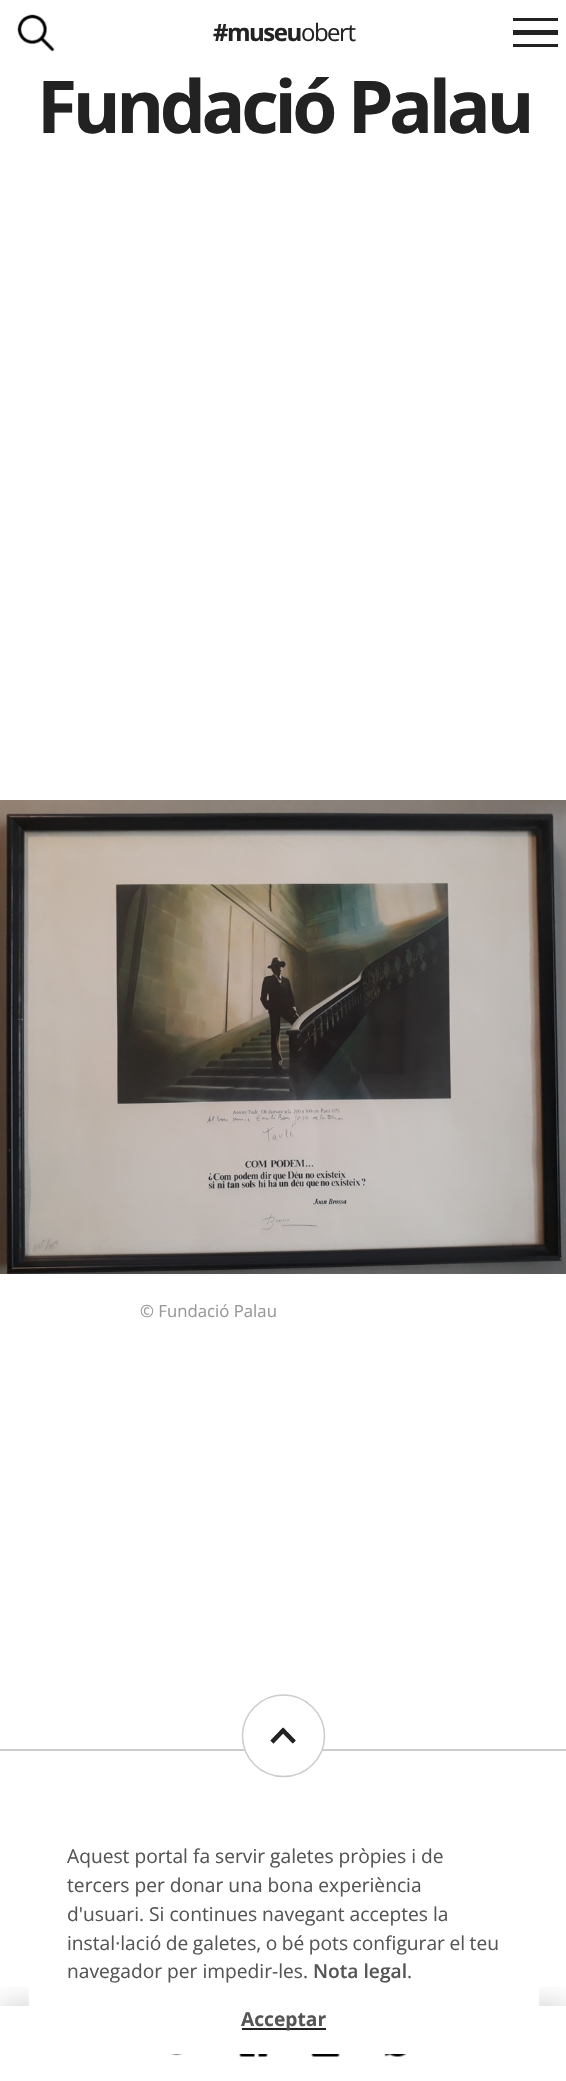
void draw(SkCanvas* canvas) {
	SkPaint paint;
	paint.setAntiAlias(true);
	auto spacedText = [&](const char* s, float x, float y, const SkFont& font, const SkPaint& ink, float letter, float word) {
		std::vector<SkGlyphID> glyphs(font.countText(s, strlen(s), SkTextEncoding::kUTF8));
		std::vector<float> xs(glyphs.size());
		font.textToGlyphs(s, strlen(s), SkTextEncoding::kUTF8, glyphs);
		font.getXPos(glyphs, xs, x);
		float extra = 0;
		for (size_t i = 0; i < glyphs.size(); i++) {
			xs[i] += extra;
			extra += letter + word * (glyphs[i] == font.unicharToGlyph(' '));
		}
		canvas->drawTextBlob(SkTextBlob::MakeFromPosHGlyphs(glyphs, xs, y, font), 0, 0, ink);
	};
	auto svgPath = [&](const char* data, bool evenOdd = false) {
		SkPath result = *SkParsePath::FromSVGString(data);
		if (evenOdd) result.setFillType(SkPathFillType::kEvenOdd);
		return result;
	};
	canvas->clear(0xffffffff);
	canvas->drawImageRect(SkImages::DeferredFromEncodedData(SkData::MakeFromFileName("img1.png")), SkRect::MakeXYWH(17, 14, 38, 38), SkSamplingOptions());
	paint.setColor(0xff222222);
	canvas->drawRect(SkRect::MakeXYWH(513, 30, 45, 5), paint);
	canvas->drawRect(SkRect::MakeXYWH(513, 18, 45, 3), paint);
	canvas->drawRect(SkRect::MakeXYWH(513, 44, 45, 3), paint);
	SkFont f1(fontMgr->matchFamilyStyle("Open Sans", SkFontStyle::Bold()), 24);
	f1.setSubpixel(true);
	spacedText("#museu", 213, 41, f1, paint, -1.5, 0);
	SkFont f2(fontMgr->matchFamilyStyle("Open Sans", SkFontStyle::Normal()), 24);
	f2.setSubpixel(true);
	spacedText("obert", 301, 41, f2, paint, -1.5, 0);
	SkFont f3(fontMgr->matchFamilyStyle("Open Sans", SkFontStyle::Bold()), 73);
	f3.setSubpixel(true);
	spacedText("Fundació Palau", 37, 133, f3, paint, -4.4, 0);
	canvas->drawImageRect(SkImages::DeferredFromEncodedData(SkData::MakeFromFileName("img2.png")), SkRect::MakeXYWH(0, 800, 566, 474), SkSamplingOptions());
	SkFont f4(fontMgr->matchFamilyStyle("Open Sans", SkFontStyle::Normal()), 16.75);
	f4.setSubpixel(true);
	paint.setColor(0xff989898);
	canvas->drawString("© Fundació Palau", 140, 1317, f4, paint);
	paint.setColor(0xffcccccc);
	canvas->drawRect(SkRect::MakeXYWH(0, 1749, 566, 2), paint);
	paint.setColor(0xffffffff);
	canvas->drawPath(svgPath("M242 1736C242 1713 261 1694 284 1694C306 1694 325 1713 325 1736C325 1759 306 1777 284 1777C261 1777 242 1759 242 1736Z"), paint);
	canvas->drawImageRect(SkImages::DeferredFromEncodedData(SkData::MakeFromFileName("img3.png")), SkRect::MakeXYWH(270, 1727, 26, 17), SkSamplingOptions());
	paint.setStroke(true);
	paint.setStrokeWidth(1.5);
	paint.setColor(0xffcccccc);
	canvas->drawPath(svgPath("M242.5 1736C242.5 1713.5 261 1695 283.5 1695C306 1695 324.5 1713.5 324.5 1736C324.5 1758.5 306 1776.5 283.5 1776.5C261 1776.5 242.5 1758.5 242.5 1736Z"), paint);
	canvas->save();
	canvas->clipRect(SkRect::MakeXYWH(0, 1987, 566, 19));
	paint.setStroke(false);
	paint.setColor(0x33000000);
	paint.setMaskFilter(SkMaskFilter::MakeBlur(kNormal_SkBlurStyle, 15));
	canvas->drawRect(SkRect::MakeXYWH(0, 2006, 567, 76), paint);
	paint.setMaskFilter(nullptr);
	canvas->restore();
	canvas->drawImageRect(SkImages::DeferredFromEncodedData(SkData::MakeFromFileName("img4.png")), SkRect::MakeXYWH(171, 2054, 12, 2), SkSamplingOptions());
	canvas->drawImageRect(SkImages::DeferredFromEncodedData(SkData::MakeFromFileName("img5.png")), SkRect::MakeXYWH(239, 2054, 29, 3), SkSamplingOptions());
	canvas->drawImageRect(SkImages::DeferredFromEncodedData(SkData::MakeFromFileName("img6.png")), SkRect::MakeXYWH(311, 2054, 29, 3), SkSamplingOptions());
	canvas->drawImageRect(SkImages::DeferredFromEncodedData(SkData::MakeFromFileName("img7.png")), SkRect::MakeXYWH(384, 2054, 23, 3), SkSamplingOptions());
	paint.setColor(0xffffffff);
	canvas->drawRect(SkRect::MakeXYWH(29, 1981, 510, 25), paint);
	SkFont f5(fontMgr->matchFamilyStyle("Open Sans", SkFontStyle::Normal()), 19.2);
	f5.setSubpixel(true);
	paint.setColor(0xff555555);
	canvas->drawString("Aquest portal fa servir galetes pròpies i de", 67, 1863, f5, paint);
	canvas->drawString("tercers per donar una bona experiència", 67, 1892, f5, paint);
	canvas->drawString("d'usuari. Si continues navegant acceptes la", 67, 1921, f5, paint);
	spacedText("instal·lació de galetes, o bé pots configurar el teu", 67, 1950, f5, paint, 0, -0.5);
	canvas->drawString("navegador per impedir-les.", 67, 1978, f5, paint);
	SkFont f6(fontMgr->matchFamilyStyle("Open Sans", SkFontStyle(600, SkFontStyle::kNormal_Width, SkFontStyle::kUpright_Slant)), 19.2);
	f6.setSubpixel(true);
	canvas->drawString("Nota legal", 313, 1978, f6, paint);
	canvas->drawString(".", 407, 1978, f5, paint);
	paint.setColor(0xff222222);
	canvas->drawRect(SkRect::MakeXYWH(242, 2028, 84, 2), paint);
	SkFont f7(fontMgr->matchFamilyStyle("Open Sans", SkFontStyle::Bold()), 19.2);
	f7.setSubpixel(true);
	paint.setColor(0xff555555);
	canvas->drawString("Acceptar", 241, 2026, f7, paint);
}
